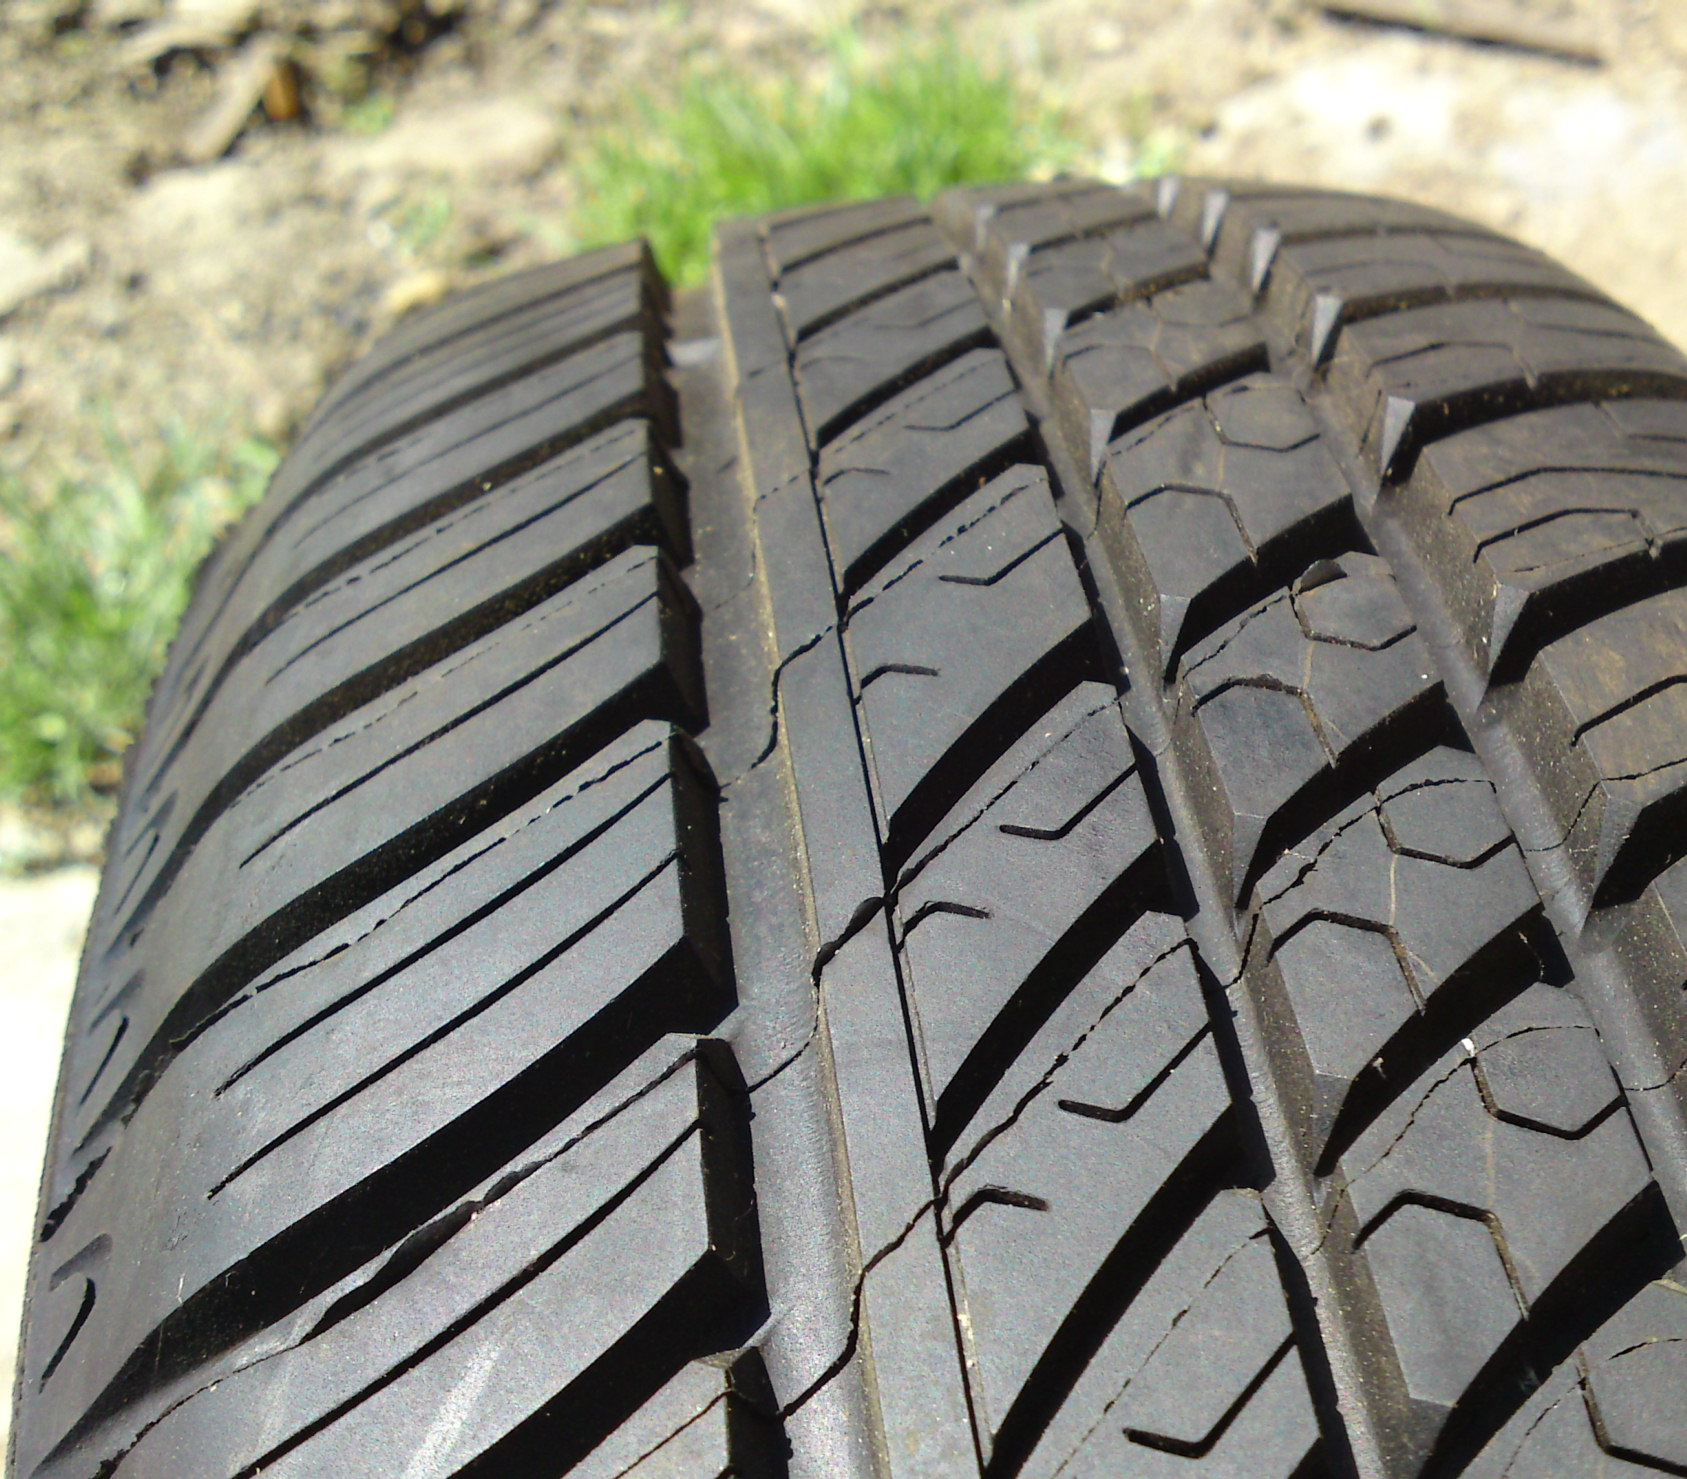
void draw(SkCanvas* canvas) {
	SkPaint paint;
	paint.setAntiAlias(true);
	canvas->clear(0xffffffff);
	canvas->drawImageRect(SkImages::DeferredFromEncodedData(SkData::MakeFromFileName("img1.png")), SkRect::MakeXYWH(0, 0, 1687, 1479), SkSamplingOptions());
}
